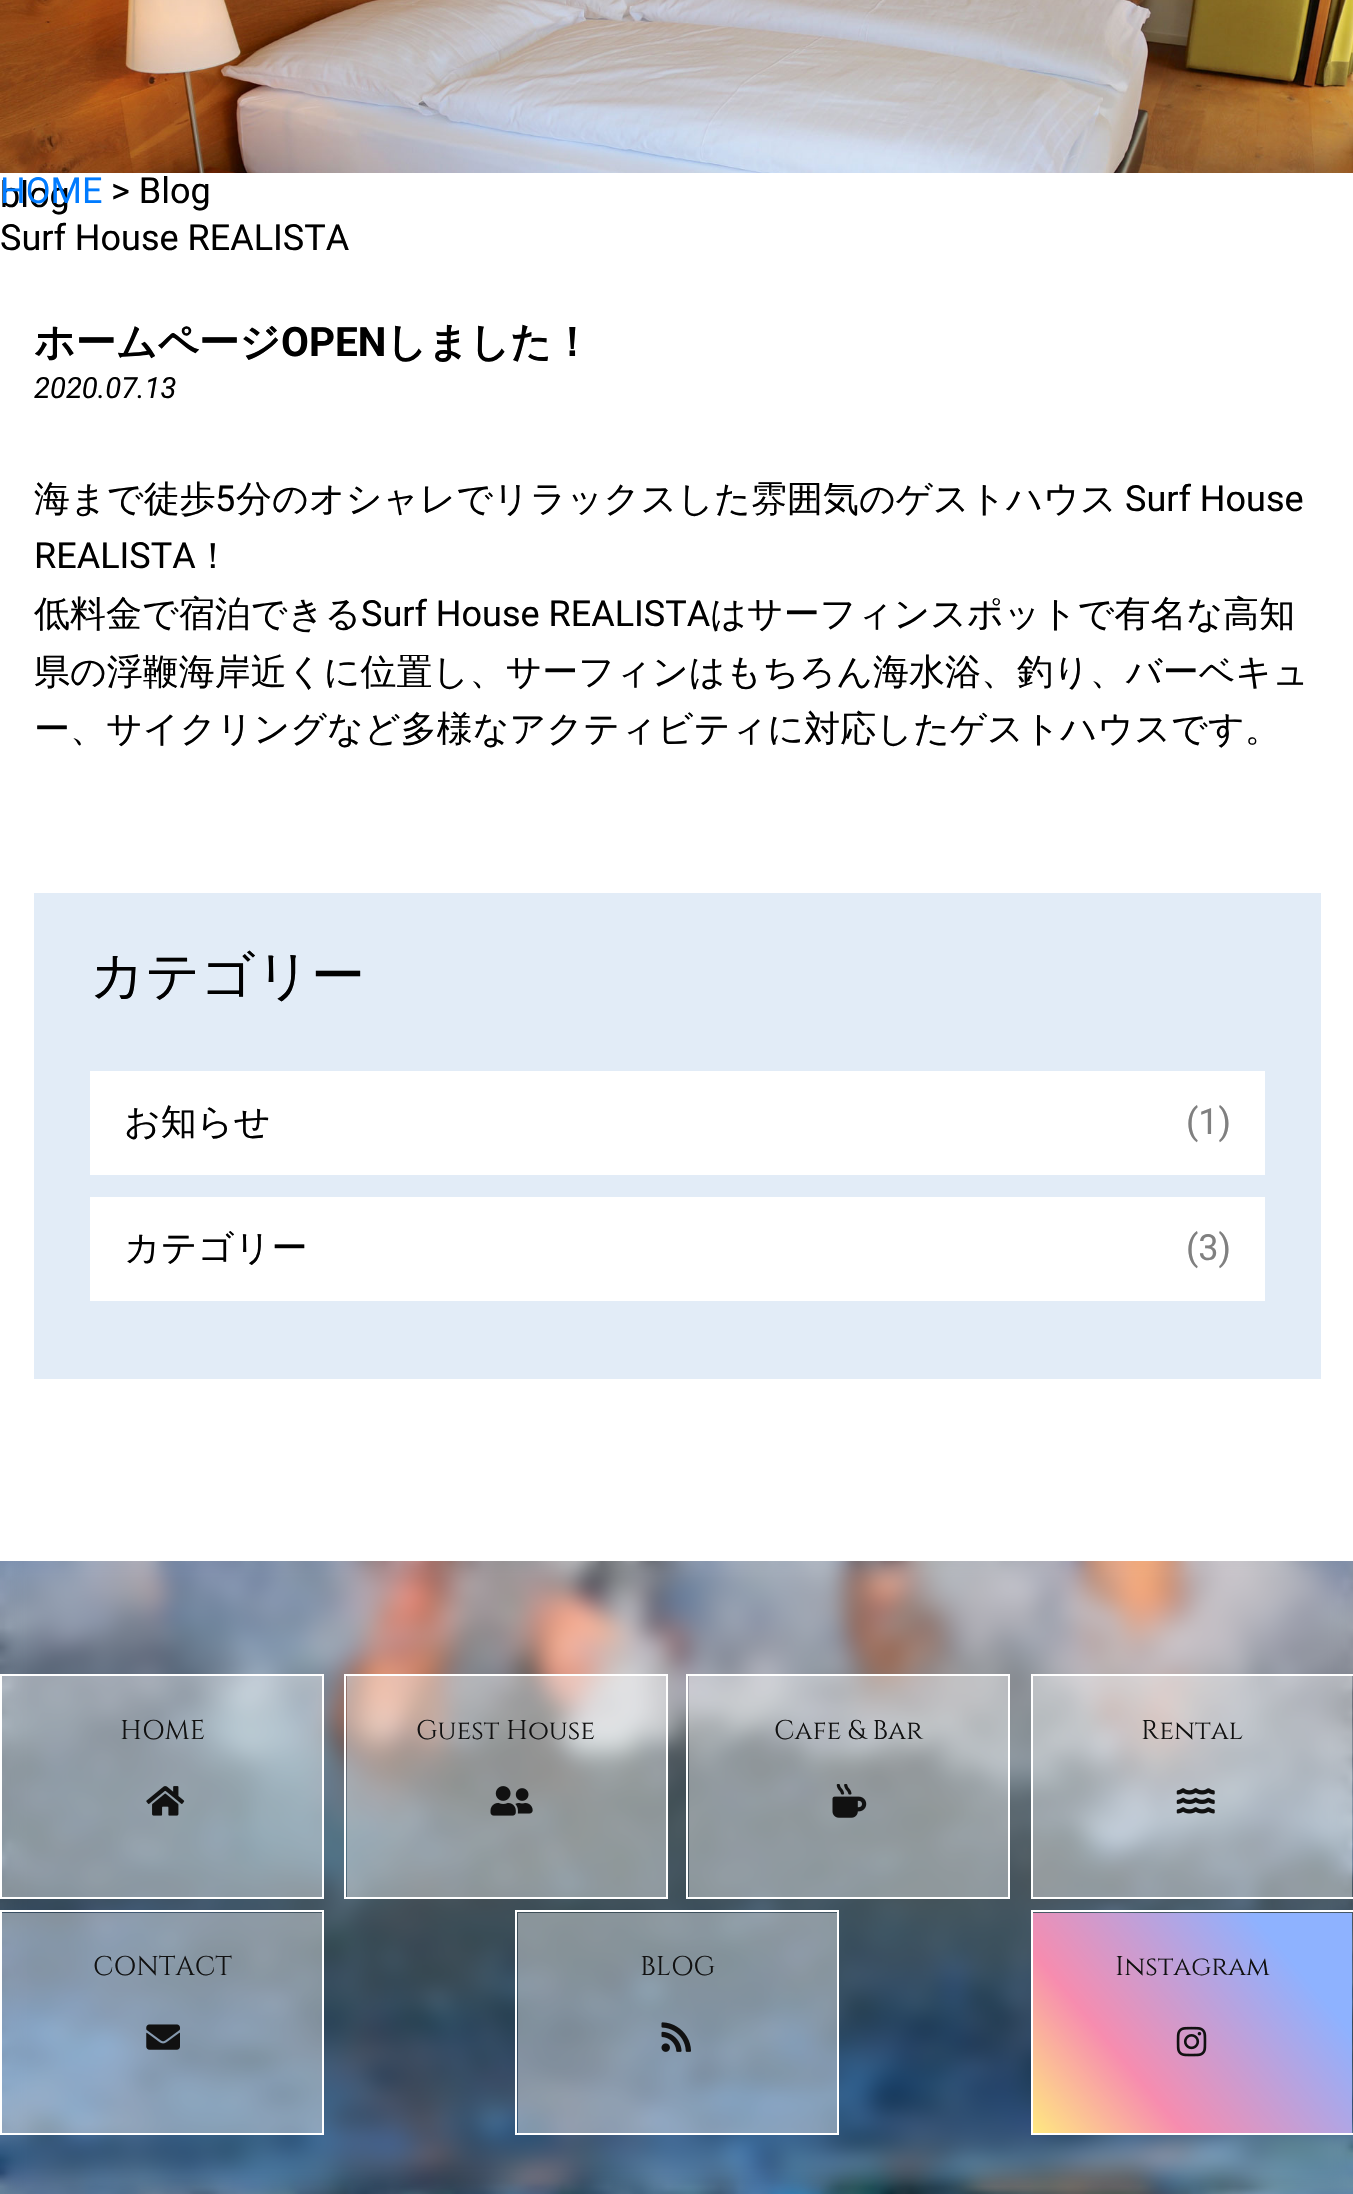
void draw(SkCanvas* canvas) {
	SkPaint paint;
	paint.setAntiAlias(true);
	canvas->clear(0xffffffff);
	SkFont f1(fontMgr->matchFamilyStyle("Roboto", SkFontStyle::Normal()), 36);
	f1.setSubpixel(true);
	paint.setColor(0xff000000);
	canvas->drawString("blog", 0, 207, f1, paint);
	paint.setColor(0xff007bff);
	canvas->drawString("HOME", 0, 203, f1, paint);
	paint.setColor(0xff000000);
	canvas->drawString("> Blog", 111, 203, f1, paint);
	canvas->drawImageRect(SkImages::DeferredFromEncodedData(SkData::MakeFromFileName("img1.png")), SkRect::MakeXYWH(0, 0, 1353, 173), SkSamplingOptions());
	canvas->drawString("Surf House REALISTA", 0, 250, f1, paint);
	SkFont f2(fontMgr->matchFamilyStyle("WenQuanYi Zen Hei", SkFontStyle::Bold()), 40.5);
	f2.setSubpixel(true);
	canvas->drawString("ホームページ", 34, 356, f2, paint);
	SkFont f3(fontMgr->matchFamilyStyle("Roboto", SkFontStyle::Bold()), 40.5);
	f3.setSubpixel(true);
	canvas->drawString("OPEN", 281, 356, f3, paint);
	canvas->drawString("しました！", 386, 356, f2, paint);
	SkFont f4(fontMgr->matchFamilyStyle("Roboto", SkFontStyle::Italic()), 29.25);
	f4.setSubpixel(true);
	canvas->drawString("2020.07.13", 34, 398, f4, paint);
	SkFont f5(fontMgr->matchFamilyStyle("WenQuanYi Zen Hei", SkFontStyle(500, SkFontStyle::kNormal_Width, SkFontStyle::kUpright_Slant)), 36);
	f5.setSubpixel(true);
	canvas->drawString("海まで徒歩", 34, 511, f5, paint);
	canvas->drawString("5", 215, 511, f1, paint);
	canvas->drawString("分のオシャレでリラックスした雰囲気のゲストハウス", 236, 511, f5, paint);
	canvas->drawString("Surf House", 1125, 511, f1, paint);
	canvas->drawString("REALISTA", 34, 568, f1, paint);
	canvas->drawString("！", 195, 568, f5, paint);
	canvas->drawString("低料金で宿泊できる", 34, 626, f5, paint);
	canvas->drawString("Surf House REALISTA", 361, 626, f1, paint);
	canvas->drawString("はサーフィンスポットで有名な高知", 710, 626, f5, paint);
	canvas->drawString("県の浮鞭海岸近くに位置し、サーフィンはもちろん海水浴、釣り、バーベキュ", 34, 684, f5, paint);
	canvas->drawString("ー、サイクリングなど多様なアクティビティに対応したゲストハウスです。", 34, 741, f5, paint);
	paint.setColor(0xffe2ecf7);
	canvas->drawRect(SkRect::MakeXYWH(34, 893, 1287, 486), paint);
	SkFont f6(fontMgr->matchFamilyStyle("WenQuanYi Zen Hei", SkFontStyle(500, SkFontStyle::kNormal_Width, SkFontStyle::kUpright_Slant)), 54);
	f6.setSubpixel(true);
	paint.setColor(0xff000000);
	canvas->drawString("カテゴリー", 90, 994, f6, paint);
	paint.setColor(0xffffffff);
	canvas->drawRect(SkRect::MakeXYWH(90, 1071, 1175, 104), paint);
	paint.setColor(0xff000000);
	canvas->drawString("お知らせ", 124, 1134, f5, paint);
	paint.setColor(0xff808080);
	canvas->drawString("(1)", 1186, 1134, f1, paint);
	paint.setColor(0xffffffff);
	canvas->drawRect(SkRect::MakeXYWH(90, 1197, 1175, 104), paint);
	paint.setColor(0xff000000);
	canvas->drawString("カテゴリー", 124, 1260, f5, paint);
	paint.setColor(0xff808080);
	canvas->drawString("(3)", 1186, 1260, f1, paint);
	canvas->drawImageRect(SkImages::DeferredFromEncodedData(SkData::MakeFromFileName("img2.png")), SkRect::MakeXYWH(0, 1561, 1353, 633), SkSamplingOptions());
	canvas->drawImageRect(SkImages::DeferredFromEncodedData(SkData::MakeFromFileName("img3.png")), SkRect::MakeXYWH(0, 1561, 1353, 633), SkSamplingOptions());
	paint.setStroke(true);
	paint.setStrokeWidth(2);
	paint.setColor(0xffffffff);
	canvas->drawRect(SkRect::MakeXYWH(1, 1675, 322, 223), paint);
	paint.setStroke(false);
	paint.setColor(0x66ffffff);
	canvas->drawRect(SkRect::MakeXYWH(2, 1676, 320, 221), paint);
	SkFont f7(fontMgr->matchFamilyStyle("Cinzel", SkFontStyle::Normal()), 27);
	f7.setSubpixel(true);
	paint.setColor(0xff111111);
	canvas->drawString("HOME", 120, 1739, f7, paint);
	canvas->drawImageRect(SkImages::DeferredFromEncodedData(SkData::MakeFromFileName("img4.png")), SkRect::MakeXYWH(146, 1786, 39, 30), SkSamplingOptions());
	paint.setStroke(true);
	paint.setColor(0xffffffff);
	canvas->drawRect(SkRect::MakeXYWH(345, 1675, 322, 223), paint);
	paint.setStroke(false);
	paint.setColor(0x66ffffff);
	canvas->drawRect(SkRect::MakeXYWH(347, 1676, 319, 221), paint);
	paint.setColor(0xff111111);
	canvas->drawString("Guest House", 416, 1739, f7, paint);
	canvas->drawImageRect(SkImages::DeferredFromEncodedData(SkData::MakeFromFileName("img5.png")), SkRect::MakeXYWH(490, 1786, 43, 30), SkSamplingOptions());
	paint.setStroke(true);
	paint.setColor(0xffffffff);
	canvas->drawRect(SkRect::MakeXYWH(687, 1675, 322, 223), paint);
	paint.setStroke(false);
	paint.setColor(0x66ffffff);
	canvas->drawRect(SkRect::MakeXYWH(689, 1676, 319, 221), paint);
	paint.setColor(0xff111111);
	canvas->drawString("Cafe & Bar", 774, 1739, f7, paint);
	canvas->drawImageRect(SkImages::DeferredFromEncodedData(SkData::MakeFromFileName("img6.png")), SkRect::MakeXYWH(832, 1784, 35, 34), SkSamplingOptions());
	paint.setStroke(true);
	paint.setColor(0xffffffff);
	canvas->drawRect(SkRect::MakeXYWH(1032, 1675, 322, 223), paint);
	paint.setStroke(false);
	paint.setColor(0x66ffffff);
	canvas->drawRect(SkRect::MakeXYWH(1033, 1676, 319, 221), paint);
	paint.setColor(0xff111111);
	canvas->drawString("Rental", 1141, 1739, f7, paint);
	canvas->drawImageRect(SkImages::DeferredFromEncodedData(SkData::MakeFromFileName("img7.png")), SkRect::MakeXYWH(1176, 1788, 39, 26), SkSamplingOptions());
	paint.setStroke(true);
	paint.setColor(0xffffffff);
	canvas->drawRect(SkRect::MakeXYWH(1, 1911, 322, 223), paint);
	paint.setStroke(false);
	paint.setColor(0x66ffffff);
	canvas->drawRect(SkRect::MakeXYWH(2, 1913, 320, 220), paint);
	paint.setColor(0xff111111);
	canvas->drawString("CONTACT", 93, 1975, f7, paint);
	canvas->drawImageRect(SkImages::DeferredFromEncodedData(SkData::MakeFromFileName("img8.png")), SkRect::MakeXYWH(146, 2024, 34, 26), SkSamplingOptions());
	paint.setStroke(true);
	paint.setColor(0xffffffff);
	canvas->drawRect(SkRect::MakeXYWH(516, 1911, 322, 223), paint);
	paint.setStroke(false);
	paint.setColor(0x66ffffff);
	canvas->drawRect(SkRect::MakeXYWH(518, 1913, 319, 220), paint);
	paint.setColor(0xff111111);
	canvas->drawString("BLOG", 640, 1975, f7, paint);
	canvas->drawImageRect(SkImages::DeferredFromEncodedData(SkData::MakeFromFileName("img9.png")), SkRect::MakeXYWH(661, 2022, 30, 30), SkSamplingOptions());
	{
		const SkColor colors[] = {0xffffdb2c, 0xfff13f79, 0xff427eff};
		const float stops[] = {0, 0.3, 0.8};
		const SkPoint ends[] = {{1044, 2147}, {1341, 1899}};
		paint.setShader(SkGradientShader::MakeLinear(ends, colors, stops, 3, SkTileMode::kClamp));
		paint.setAlpha(255);
	}
	canvas->drawRect(SkRect::MakeXYWH(1033, 1913, 319, 220), paint);
	paint.setStroke(true);
	paint.setShader(nullptr);
	paint.setColor(0xffffffff);
	canvas->drawRect(SkRect::MakeXYWH(1032, 1911, 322, 223), paint);
	paint.setStroke(false);
	paint.setColor(0x66ffffff);
	canvas->drawRect(SkRect::MakeXYWH(1033, 1913, 319, 220), paint);
	paint.setColor(0xff111111);
	canvas->drawString("Instagram", 1115, 1975, f7, paint);
	canvas->drawImageRect(SkImages::DeferredFromEncodedData(SkData::MakeFromFileName("img10.png")), SkRect::MakeXYWH(1176, 2026, 31, 31), SkSamplingOptions());
}
